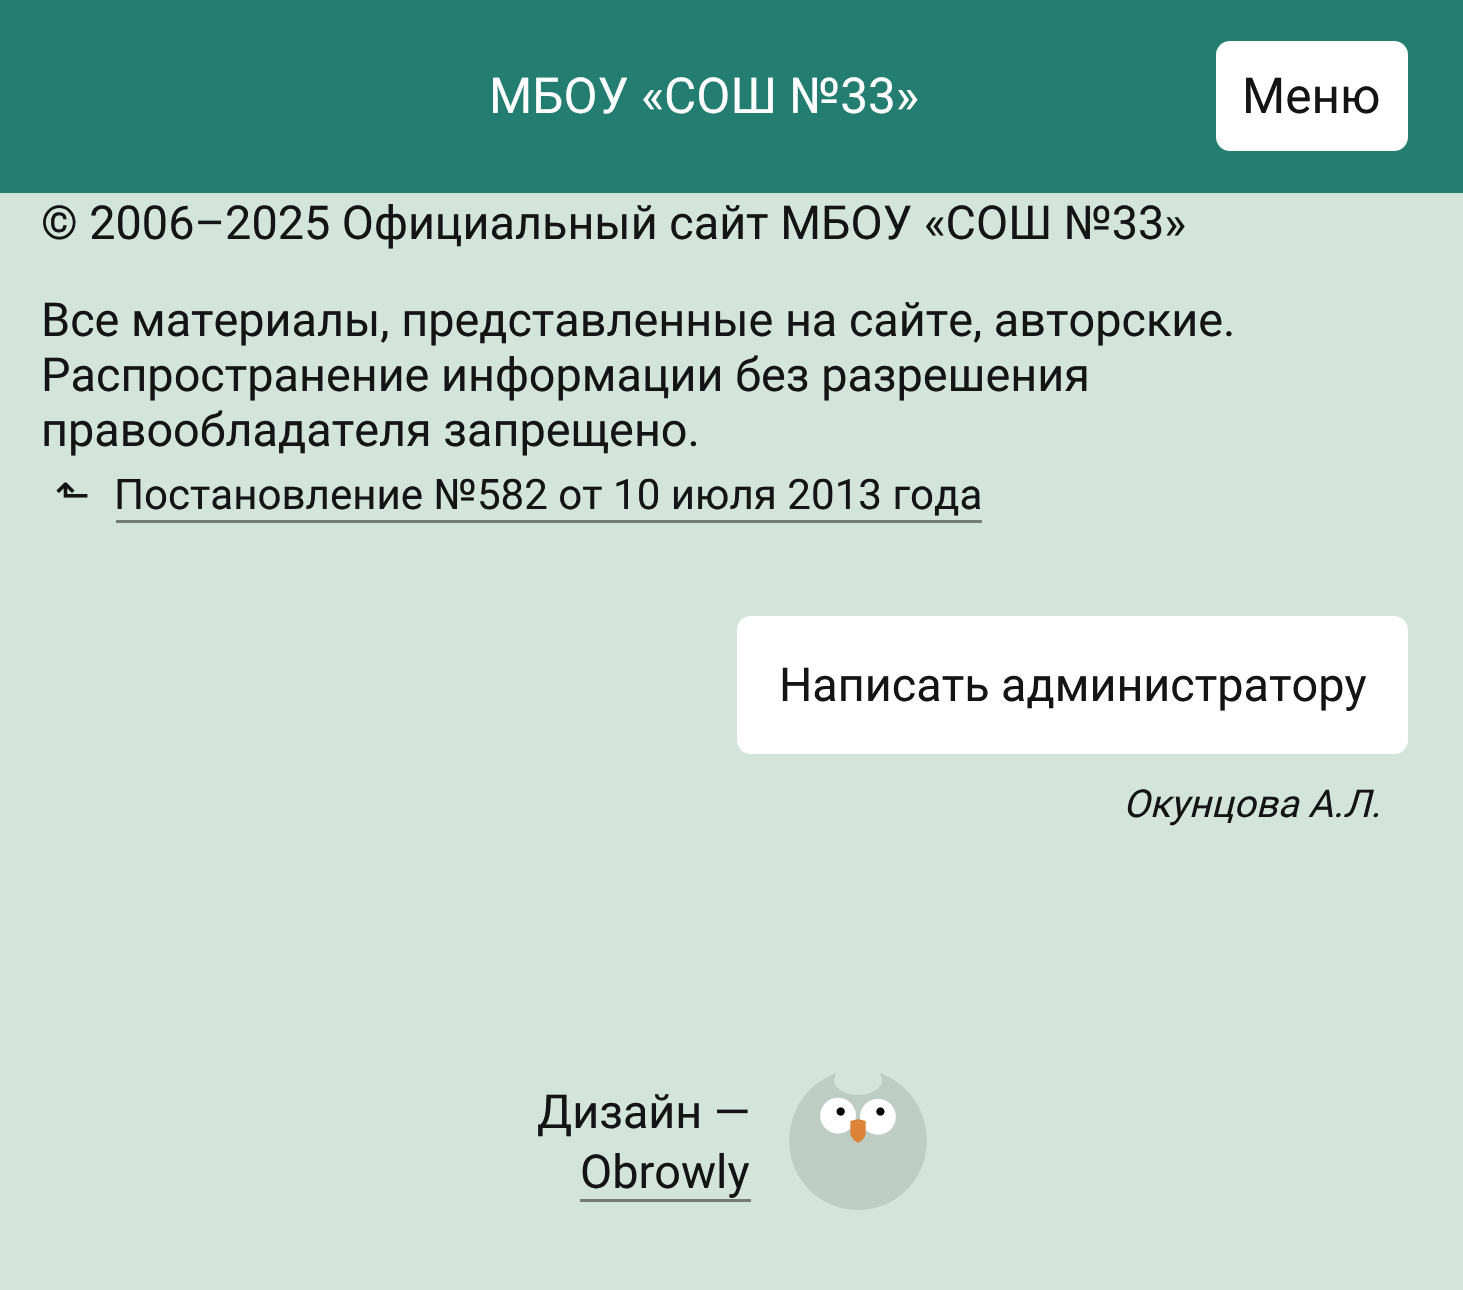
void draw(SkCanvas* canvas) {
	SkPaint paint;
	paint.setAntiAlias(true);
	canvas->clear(0xffd3e5da);
	paint.setColor(0xff247d71);
	canvas->drawRect(SkRect::MakeXYWH(0, 0, 1463, 193), paint);
	SkFont f1(fontMgr->matchFamilyStyle("Roboto", SkFontStyle::Normal()), 49.5);
	f1.setSubpixel(true);
	paint.setColor(0xffffffff);
	canvas->drawString("МБОУ «СОШ №33»", 489, 113, f1, paint);
	canvas->drawRoundRect(SkRect::MakeXYWH(1216, 41, 192, 110), 14, 14, paint);
	paint.setColor(0xff151414);
	canvas->drawString("Меню", 1242, 113, f1, paint);
	SkFont f2(fontMgr->matchFamilyStyle("Roboto", SkFontStyle::Normal()), 46.75);
	f2.setSubpixel(true);
	canvas->drawString("© 2006–2025 Официальный сайт МБОУ «СОШ №33»", 41, 239, f2, paint);
	canvas->drawString("Все материалы, представленные на сайте, авторские.", 41, 336, f2, paint);
	canvas->drawString("Распространение информации без разрешения", 41, 391, f2, paint);
	canvas->drawString("правообладателя запрещено.", 41, 446, f2, paint);
	SkFont f3(fontMgr->matchFamilyStyle("DejaVu Sans", SkFontStyle::Normal()), 42.1);
	f3.setSubpixel(true);
	canvas->drawString("⬑", 55, 509, f3, paint);
	SkFont f4(fontMgr->matchFamilyStyle("Roboto", SkFontStyle::Normal()), 42.1);
	f4.setSubpixel(true);
	canvas->drawString("Постановление №582 от 10 июля 2013 года", 114, 509, f4, paint);
	paint.setColor(0xff737c77);
	canvas->drawRect(SkRect::MakeXYWH(116, 520, 866, 3), paint);
	paint.setColor(0xffffffff);
	canvas->drawRoundRect(SkRect::MakeXYWH(737, 616, 671, 138), 14, 14, paint);
	paint.setColor(0xff151414);
	canvas->drawString("Написать администратору", 779, 701, f2, paint);
	SkFont f5(fontMgr->matchFamilyStyle("Roboto", SkFontStyle::Italic()), 38.5);
	f5.setSubpixel(true);
	canvas->drawString("Окунцова А.Л.", 1123, 817, f5, paint);
	canvas->drawString("Дизайн —", 537, 1128, f2, paint);
	canvas->drawString("Obrowly", 580, 1188, f2, paint);
	paint.setColor(0xff737c77);
	canvas->drawRect(SkRect::MakeXYWH(580, 1199, 171, 3), paint);
	canvas->drawImageRect(SkImages::DeferredFromEncodedData(SkData::MakeFromFileName("img1.png")), SkRect::MakeXYWH(789, 1073, 138, 137), SkSamplingOptions());
}
